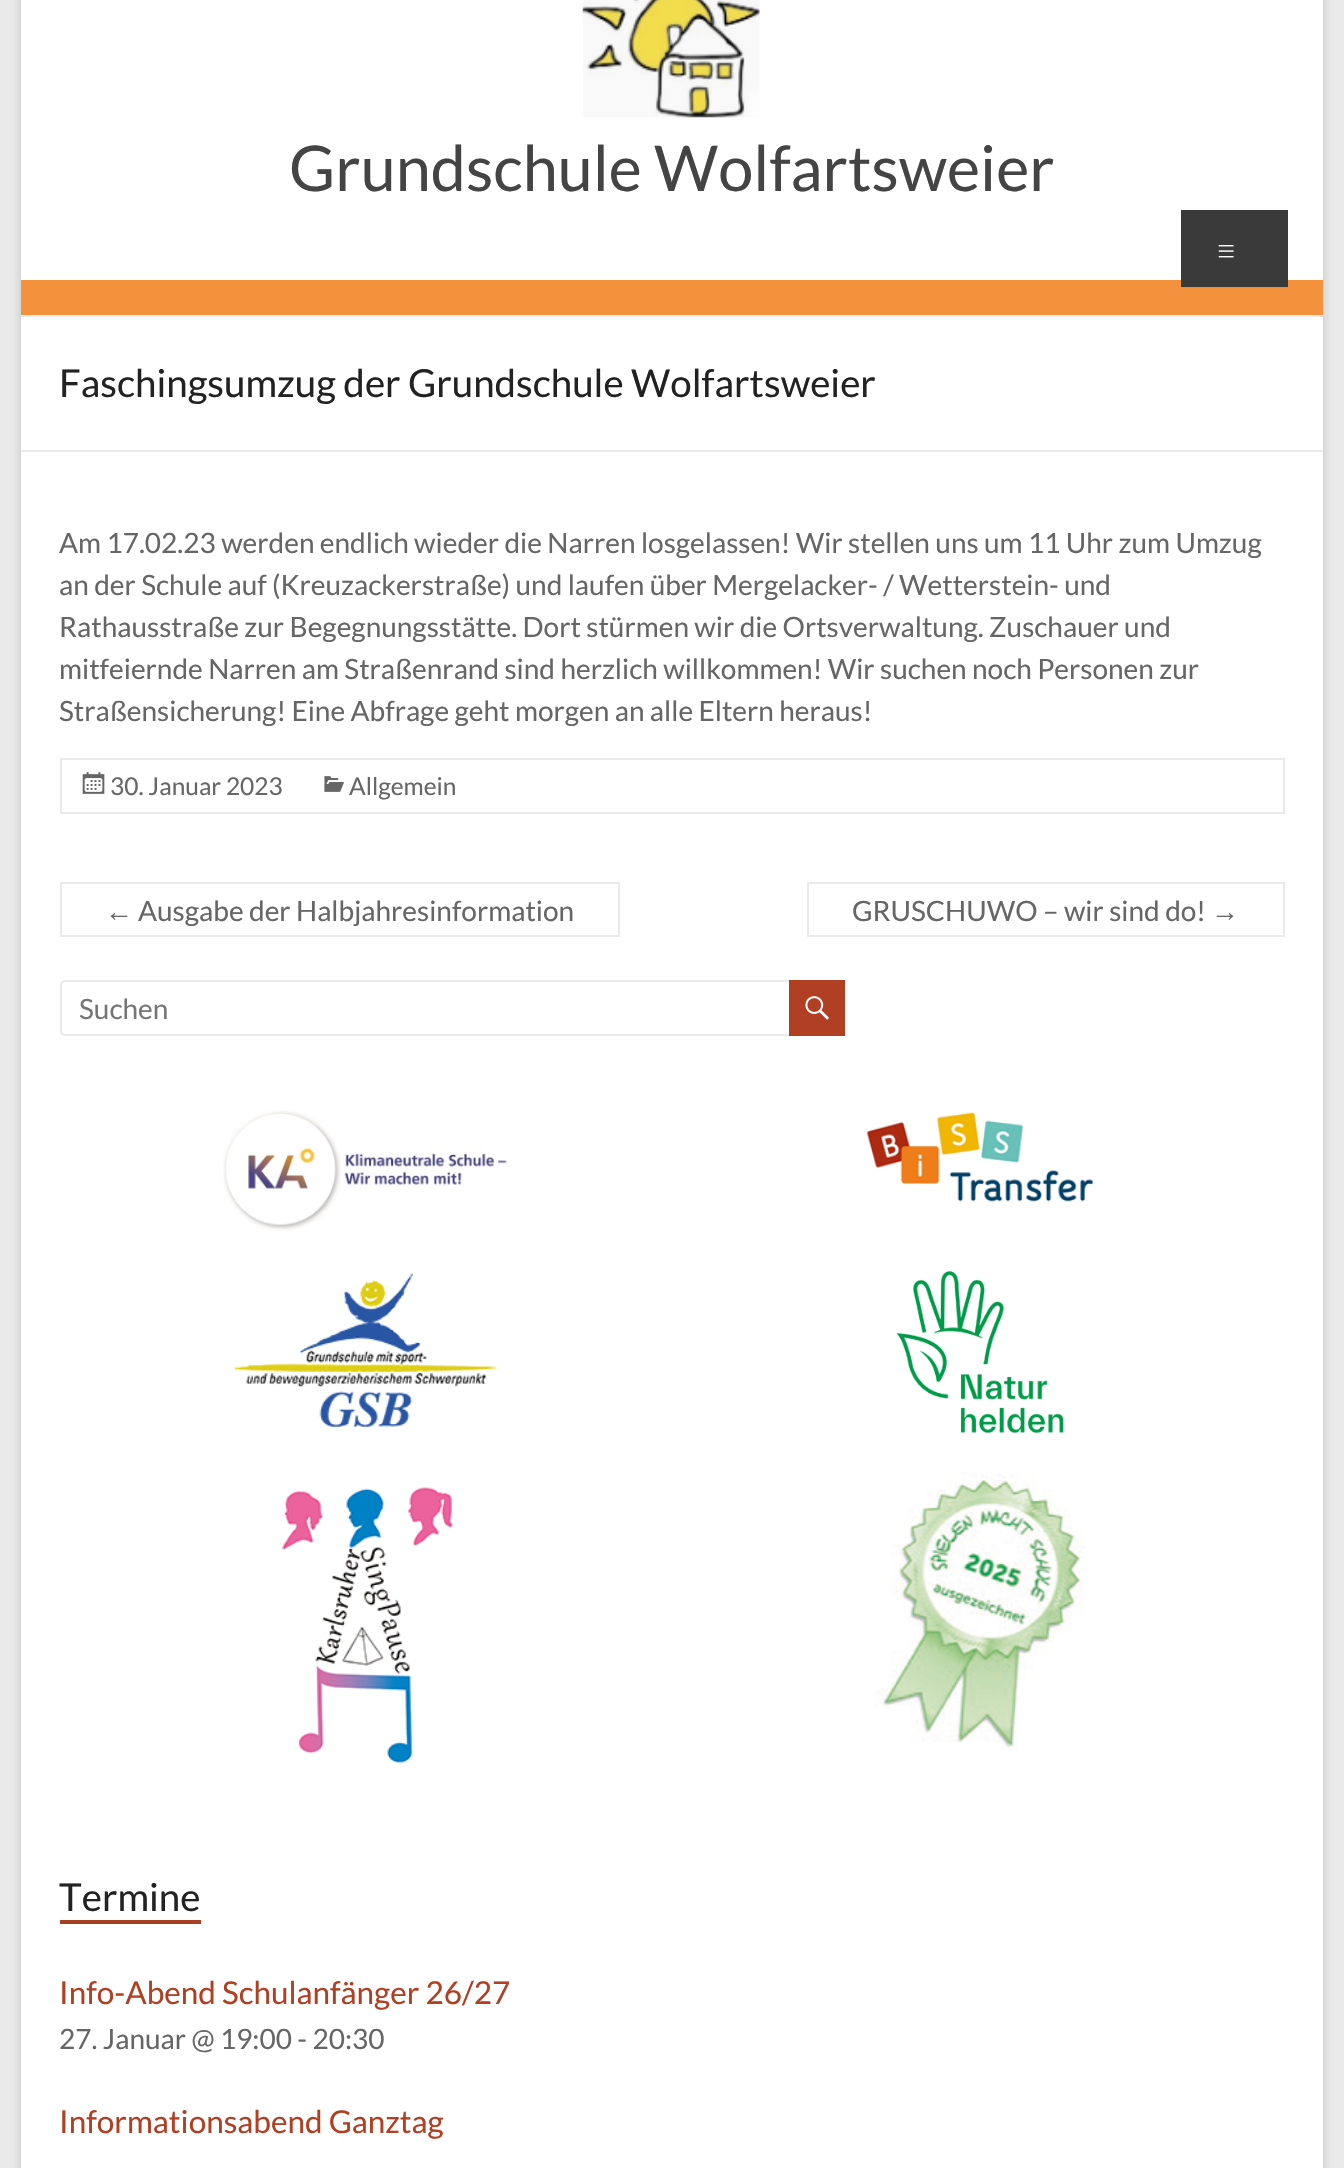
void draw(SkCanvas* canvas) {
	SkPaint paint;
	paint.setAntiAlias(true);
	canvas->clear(0xffeaeaea);
	paint.setColor(0x4d646464);
	paint.setMaskFilter(SkMaskFilter::MakeBlur(kNormal_SkBlurStyle, 5));
	canvas->drawRect(SkRect::MakeXYWH(21, -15, 1302, 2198), paint);
	paint.setMaskFilter(nullptr);
	paint.setColor(0xffffffff);
	canvas->drawRect(SkRect::MakeXYWH(21, 0, 1302, 2168), paint);
	paint.setColor(0xffeaeaea);
	canvas->drawRect(SkRect::MakeXYWH(21, 315, 1302, 2), paint);
	canvas->drawImageRect(SkImages::DeferredFromEncodedData(SkData::MakeFromFileName("img1.png")), SkRect::MakeXYWH(582, 0, 178, 118), SkSamplingOptions());
	SkFont f1(fontMgr->matchFamilyStyle("Lato", SkFontStyle::Normal()), 63);
	f1.setSubpixel(true);
	paint.setColor(0xff444444);
	canvas->drawString("Grundschule Wolfartsweier", 289, 191, f1, paint);
	paint.setColor(0xfff3913d);
	canvas->drawRect(SkRect::MakeXYWH(21, 280, 1302, 35), paint);
	paint.setColor(0xff3a3a3a);
	canvas->drawRect(SkRect::MakeXYWH(1181, 210, 107, 77), paint);
	SkFont f2(fontMgr->matchFamilyStyle("Lato", SkFontStyle(300, SkFontStyle::kNormal_Width, SkFontStyle::kUpright_Slant)), 35);
	f2.setSubpixel(true);
	paint.setColor(0xffffffff);
	canvas->drawString("≡", 1216, 263, f2, paint);
	paint.setColor(0xffeaeaea);
	canvas->drawRect(SkRect::MakeXYWH(21, 450, 1302, 2), paint);
	SkFont f3(fontMgr->matchFamilyStyle("Lato", SkFontStyle::Normal()), 38.5);
	f3.setSubpixel(true);
	paint.setColor(0xff222222);
	canvas->drawString("Faschingsumzug der Grundschule Wolfartsweier", 59, 397, f3, paint);
	SkFont f4(fontMgr->matchFamilyStyle("Lato", SkFontStyle::Normal()), 28);
	f4.setSubpixel(true);
	paint.setColor(0xff666666);
	canvas->drawString("Am 17.02.23 werden endlich wieder die Narren losgelassen! Wir stellen uns um 11 Uhr zum Umzug", 59, 553, f4, paint);
	canvas->drawString("an der Schule auf (Kreuzackerstraße) und laufen über Mergelacker- / Wetterstein- und", 59, 595, f4, paint);
	canvas->drawString("Rathausstraße zur Begegnungsstätte. Dort stürmen wir die Ortsverwaltung. Zuschauer und", 59, 637, f4, paint);
	canvas->drawString("mitfeiernde Narren am Straßenrand sind herzlich willkommen! Wir suchen noch Personen zur", 59, 679, f4, paint);
	canvas->drawString("Straßensicherung! Eine Abfrage geht morgen an alle Eltern heraus!", 59, 721, f4, paint);
	paint.setStroke(true);
	paint.setStrokeWidth(2);
	paint.setColor(0xffeaeaea);
	canvas->drawRect(SkRect::MakeXYWH(61, 759, 1223, 54), paint);
	canvas->drawImageRect(SkImages::DeferredFromEncodedData(SkData::MakeFromFileName("img2.png")), SkRect::MakeXYWH(82, 772, 23, 22), SkSamplingOptions());
	SkFont f5(fontMgr->matchFamilyStyle("Lato", SkFontStyle::Normal()), 24.5);
	f5.setSubpixel(true);
	paint.setStroke(false);
	paint.setColor(0xff666666);
	canvas->drawString("30. Januar 2023", 110, 795, f5, paint);
	canvas->drawImageRect(SkImages::DeferredFromEncodedData(SkData::MakeFromFileName("img3.png")), SkRect::MakeXYWH(324, 776, 20, 16), SkSamplingOptions());
	canvas->drawString("Allgemein", 349, 795, f5, paint);
	SkFont f6(fontMgr->matchFamilyStyle("Liberation Sans", SkFontStyle::Normal()), 28);
	f6.setSubpixel(true);
	canvas->drawString("←", 105, 921, f6, paint);
	paint.setColor(0xffeaeaea);
	canvas->drawRect(SkRect::MakeXYWH(60, 935, 73, 2), paint);
	canvas->drawRect(SkRect::MakeXYWH(60, 882, 560, 2), paint);
	canvas->drawRect(SkRect::MakeXYWH(60, 882, 2, 54), paint);
	canvas->drawRect(SkRect::MakeXYWH(618, 882, 2, 54), paint);
	canvas->drawRect(SkRect::MakeXYWH(133, 935, 487, 2), paint);
	paint.setColor(0xff666666);
	canvas->drawString("Ausgabe der Halbjahresinformation", 138, 921, f4, paint);
	canvas->drawString("GRUSCHUWO – wir sind do!", 852, 921, f4, paint);
	paint.setColor(0xffeaeaea);
	canvas->drawRect(SkRect::MakeXYWH(807, 882, 478, 2), paint);
	canvas->drawRect(SkRect::MakeXYWH(807, 935, 404, 2), paint);
	canvas->drawRect(SkRect::MakeXYWH(807, 882, 2, 54), paint);
	paint.setColor(0xff666666);
	canvas->drawString("→", 1211, 921, f6, paint);
	paint.setColor(0xffeaeaea);
	canvas->drawRect(SkRect::MakeXYWH(1283, 882, 2, 54), paint);
	canvas->drawRect(SkRect::MakeXYWH(1211, 935, 74, 2), paint);
	paint.setStroke(true);
	canvas->drawRoundRect(SkRect::MakeXYWH(61, 981, 733, 54), 4, 4, paint);
	paint.setStroke(false);
	paint.setColor(0xff757575);
	canvas->drawString("Suchen", 79, 1019, f4, paint);
	paint.setColor(0xffb03f23);
	canvas->drawRect(SkRect::MakeXYWH(789, 980, 56, 56), paint);
	canvas->drawImageRect(SkImages::DeferredFromEncodedData(SkData::MakeFromFileName("img4.png")), SkRect::MakeXYWH(805, 996, 24, 24), SkSamplingOptions());
	canvas->drawImageRect(SkImages::DeferredFromEncodedData(SkData::MakeFromFileName("img5.png")), SkRect::MakeXYWH(223, 1110, 284, 121), SkSamplingOptions());
	canvas->drawImageRect(SkImages::DeferredFromEncodedData(SkData::MakeFromFileName("img6.png")), SkRect::MakeXYWH(866, 1112, 228, 90), SkSamplingOptions());
	canvas->drawImageRect(SkImages::DeferredFromEncodedData(SkData::MakeFromFileName("img7.png")), SkRect::MakeXYWH(234, 1273, 263, 154), SkSamplingOptions());
	canvas->drawImageRect(SkImages::DeferredFromEncodedData(SkData::MakeFromFileName("img8.png")), SkRect::MakeXYWH(896, 1271, 168, 162), SkSamplingOptions());
	canvas->drawImageRect(SkImages::DeferredFromEncodedData(SkData::MakeFromFileName("img9.png")), SkRect::MakeXYWH(282, 1487, 172, 276), SkSamplingOptions());
	canvas->drawImageRect(SkImages::DeferredFromEncodedData(SkData::MakeFromFileName("img10.png")), SkRect::MakeXYWH(875, 1472, 210, 279), SkSamplingOptions());
	paint.setColor(0xff222222);
	canvas->drawString("Termine", 59, 1911, f3, paint);
	paint.setColor(0xffa73f23);
	canvas->drawRect(SkRect::MakeXYWH(60, 1920, 141, 4), paint);
	SkFont f7(fontMgr->matchFamilyStyle("Lato", SkFontStyle::Normal()), 31.5);
	f7.setSubpixel(true);
	paint.setColor(0xffb03f23);
	canvas->drawString("Info-Abend Schulanfänger 26/27", 59, 2004, f7, paint);
	paint.setColor(0xff666666);
	canvas->drawString("27. Januar @ 19:00 - 20:30", 59, 2049, f4, paint);
	paint.setColor(0xffb03f23);
	canvas->drawString("Informationsabend Ganztag", 59, 2133, f7, paint);
}
